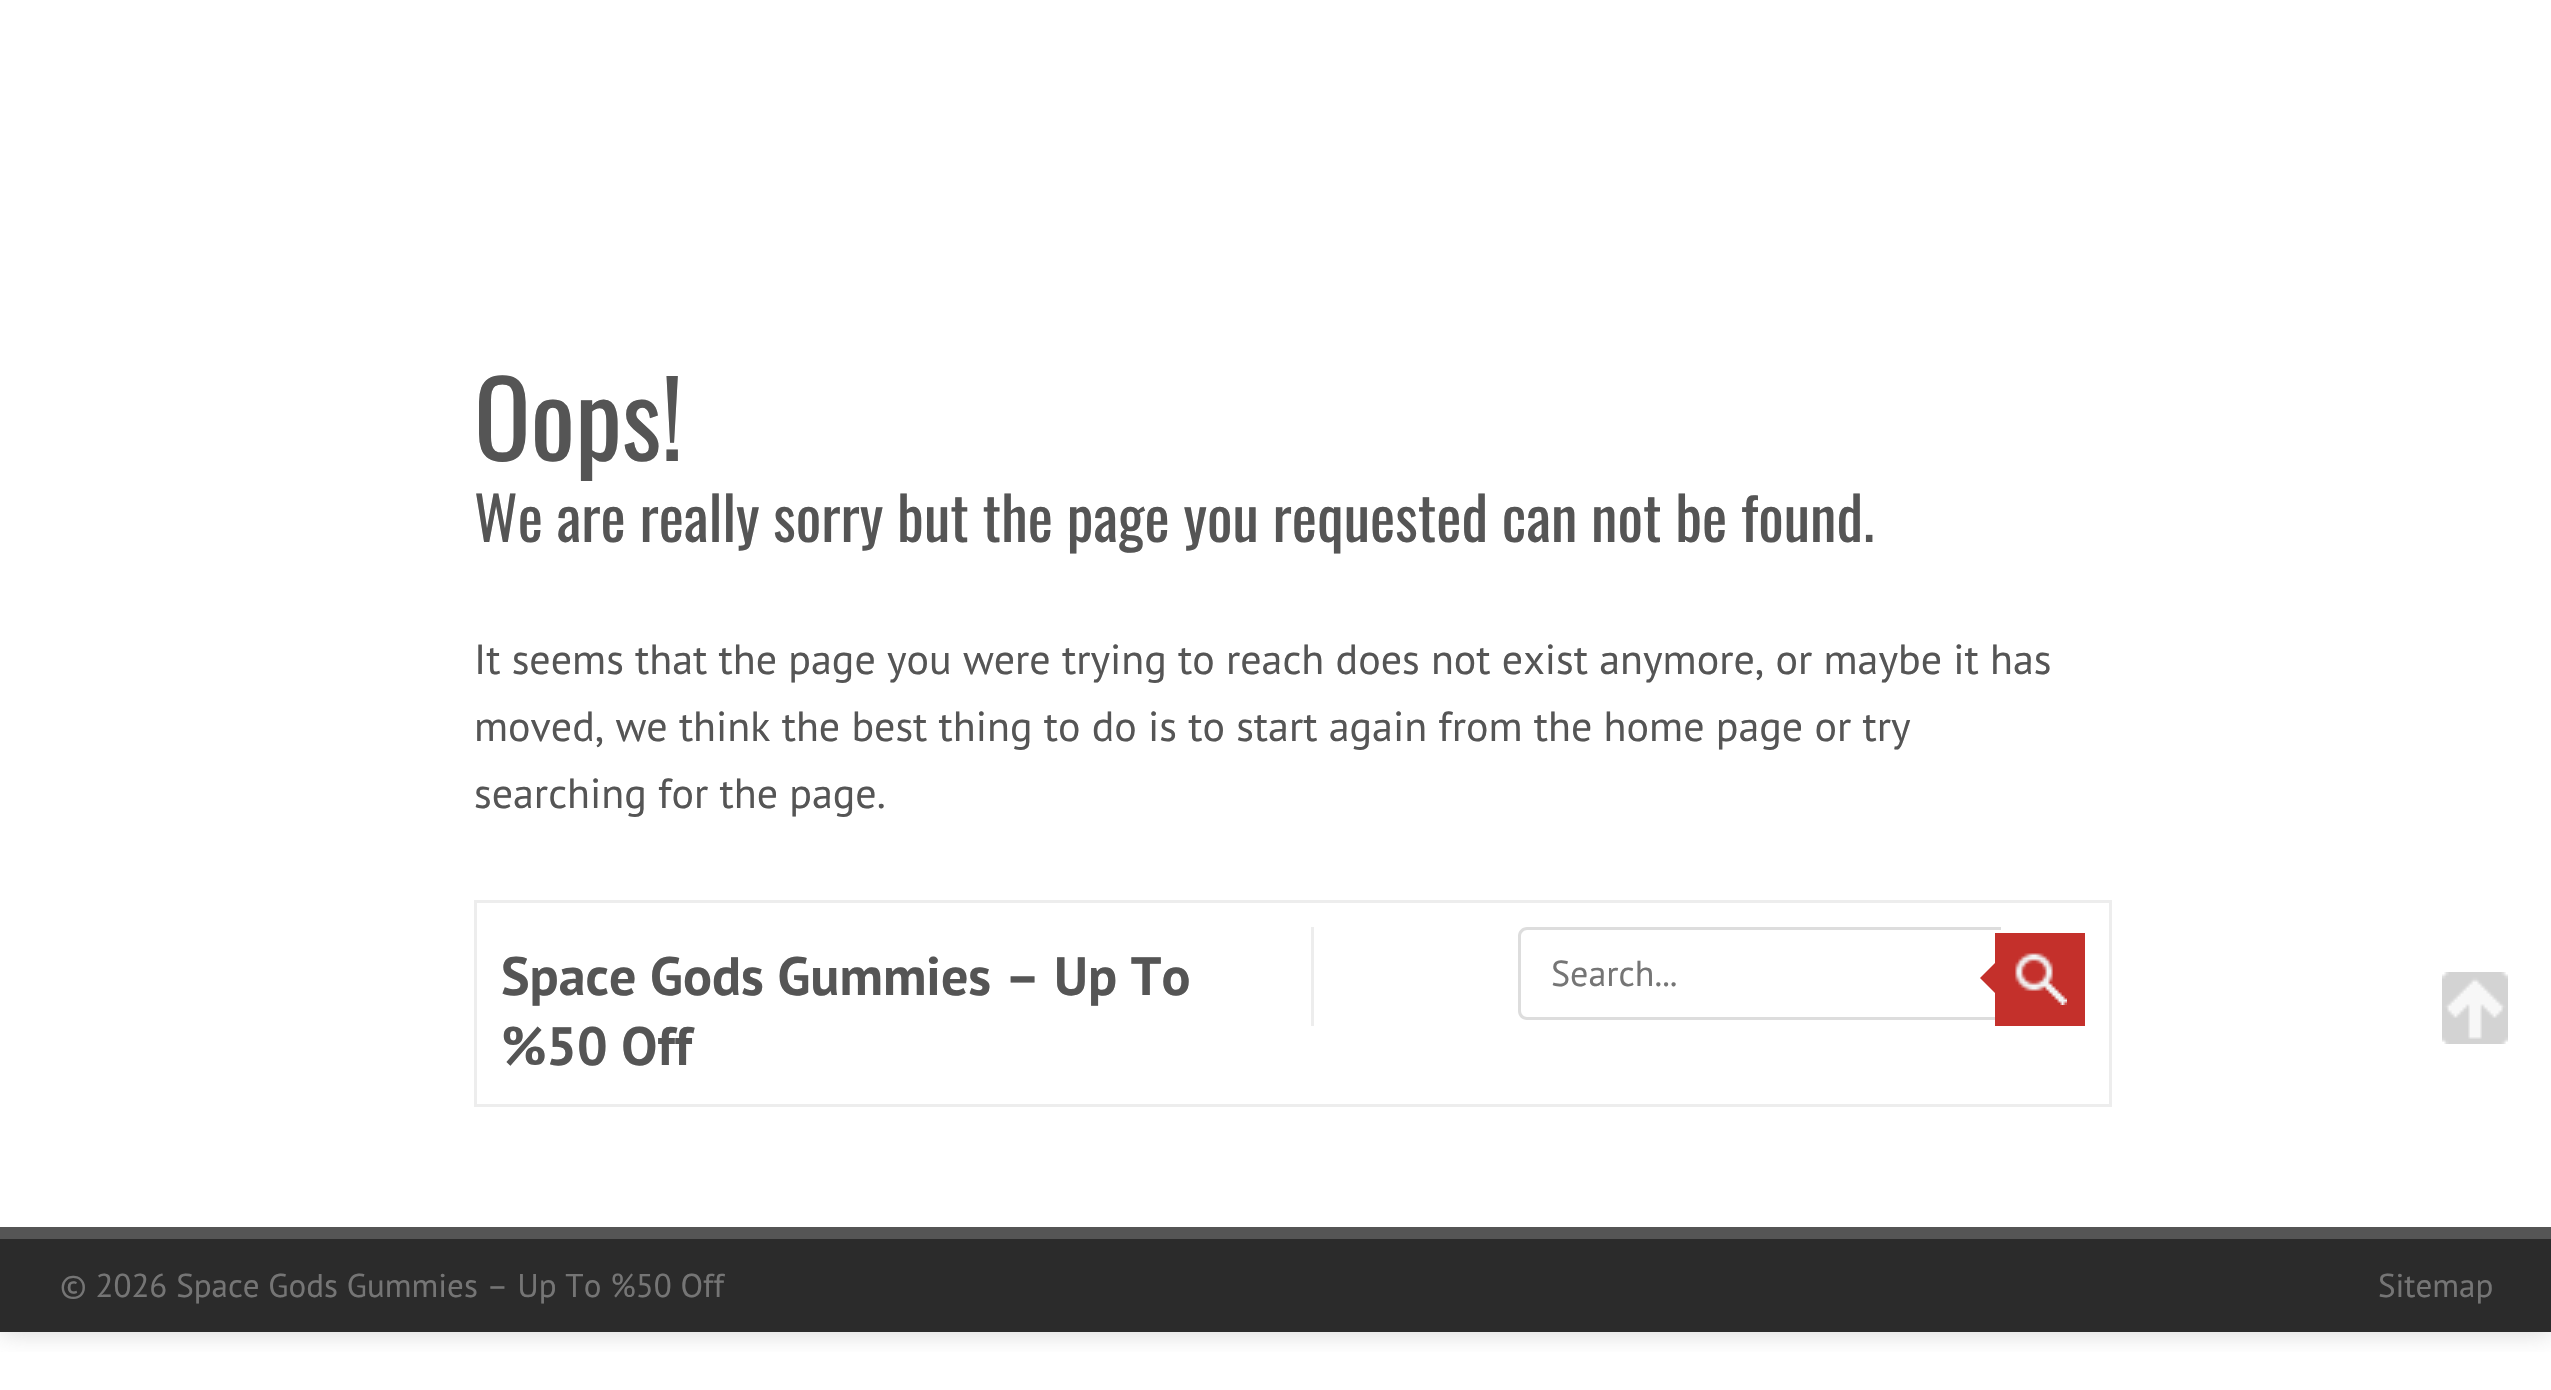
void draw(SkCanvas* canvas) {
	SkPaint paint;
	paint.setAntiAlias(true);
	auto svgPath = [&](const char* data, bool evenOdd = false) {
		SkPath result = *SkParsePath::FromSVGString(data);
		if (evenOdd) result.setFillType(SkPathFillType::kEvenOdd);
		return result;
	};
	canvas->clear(0xffffffff);
	canvas->save();
	canvas->clipRect(SkRect::MakeXYWH(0, 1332, 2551, 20));
	paint.setColor(0x66969696);
	paint.setMaskFilter(SkMaskFilter::MakeBlur(kNormal_SkBlurStyle, 12));
	canvas->drawRect(SkRect::MakeXYWH(0, -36, 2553, 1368), paint);
	paint.setMaskFilter(nullptr);
	canvas->restore();
	SkFont f1(fontMgr->matchFamilyStyle("Oswald", SkFontStyle::Normal()), 105);
	f1.setSubpixel(true);
	paint.setColor(0xff555555);
	canvas->drawString("Oops!", 474, 461, f1, paint);
	SkFont f2(fontMgr->matchFamilyStyle("Oswald", SkFontStyle::Normal()), 60);
	f2.setSubpixel(true);
	canvas->drawString("We are really sorry but the page you requested can not be found.", 474, 542, f2, paint);
	SkFont f3(fontMgr->matchFamilyStyle("PT Sans", SkFontStyle::Normal()), 42);
	f3.setSubpixel(true);
	canvas->drawString("It seems that the page you were trying to reach does not exist anymore, or maybe it has", 474, 674, f3, paint);
	canvas->drawString("moved, we think the best thing to do is to start again from the home page or try", 474, 741, f3, paint);
	canvas->drawString("searching for the page.", 474, 808, f3, paint);
	paint.setStroke(true);
	paint.setStrokeWidth(3);
	paint.setColor(0xffededed);
	canvas->drawRect(SkRect::MakeXYWH(475.5, 901.5, 1635, 204), paint);
	SkFont f4(fontMgr->matchFamilyStyle("PT Sans", SkFontStyle::Bold()), 54);
	f4.setSubpixel(true);
	paint.setStroke(false);
	paint.setColor(0xff555555);
	canvas->drawString("Space Gods Gummies – Up To", 501, 995, f4, paint);
	canvas->drawString("%50 Off", 501, 1065, f4, paint);
	paint.setColor(0xffededed);
	canvas->drawRect(SkRect::MakeXYWH(1311, 927, 3, 99), paint);
	paint.setColor(0xffdddddd);
	canvas->drawPath(svgPath("M1527 927H2001V1020H1527C1522 1020 1518 1016 1518 1011V936C1518 931 1522 927 1527 927ZM1527 930H2001V1017H1527C1524 1017 1521 1014 1521 1011V936C1521 933 1524 930 1527 930Z", true), paint);
	SkFont f5(fontMgr->matchFamilyStyle("PT Sans", SkFontStyle::Normal()), 36);
	f5.setSubpixel(true);
	paint.setColor(0xff757575);
	canvas->drawString("Search...", 1551, 986, f5, paint);
	paint.setColor(0xffc4302b);
	canvas->drawRect(SkRect::MakeXYWH(1995, 933, 90, 93), paint);
	canvas->drawImageRect(SkImages::DeferredFromEncodedData(SkData::MakeFromFileName("img1.png")), SkRect::MakeXYWH(2015, 953, 52, 52), SkSamplingOptions());
	canvas->drawPath(svgPath("M1995 963V993L1980 978Z"), paint);
	paint.setColor(0xff555555);
	canvas->drawRect(SkRect::MakeXYWH(0, 1227, 2551, 12), paint);
	canvas->drawImageRect(SkImages::DeferredFromEncodedData(SkData::MakeFromFileName("img2.png")), SkRect::MakeXYWH(2442, 972, 66, 72), SkSamplingOptions());
	paint.setColor(0xff2b2b2b);
	canvas->drawRect(SkRect::MakeXYWH(0, 1239, 2551, 93), paint);
	SkFont f6(fontMgr->matchFamilyStyle("PT Sans", SkFontStyle::Normal()), 33);
	f6.setSubpixel(true);
	paint.setColor(0xff757575);
	canvas->drawString("© 2026 Space Gods Gummies – Up To %50 Off", 60, 1297, f6, paint);
	canvas->drawString("Sitemap", 2378, 1297, f6, paint);
}
